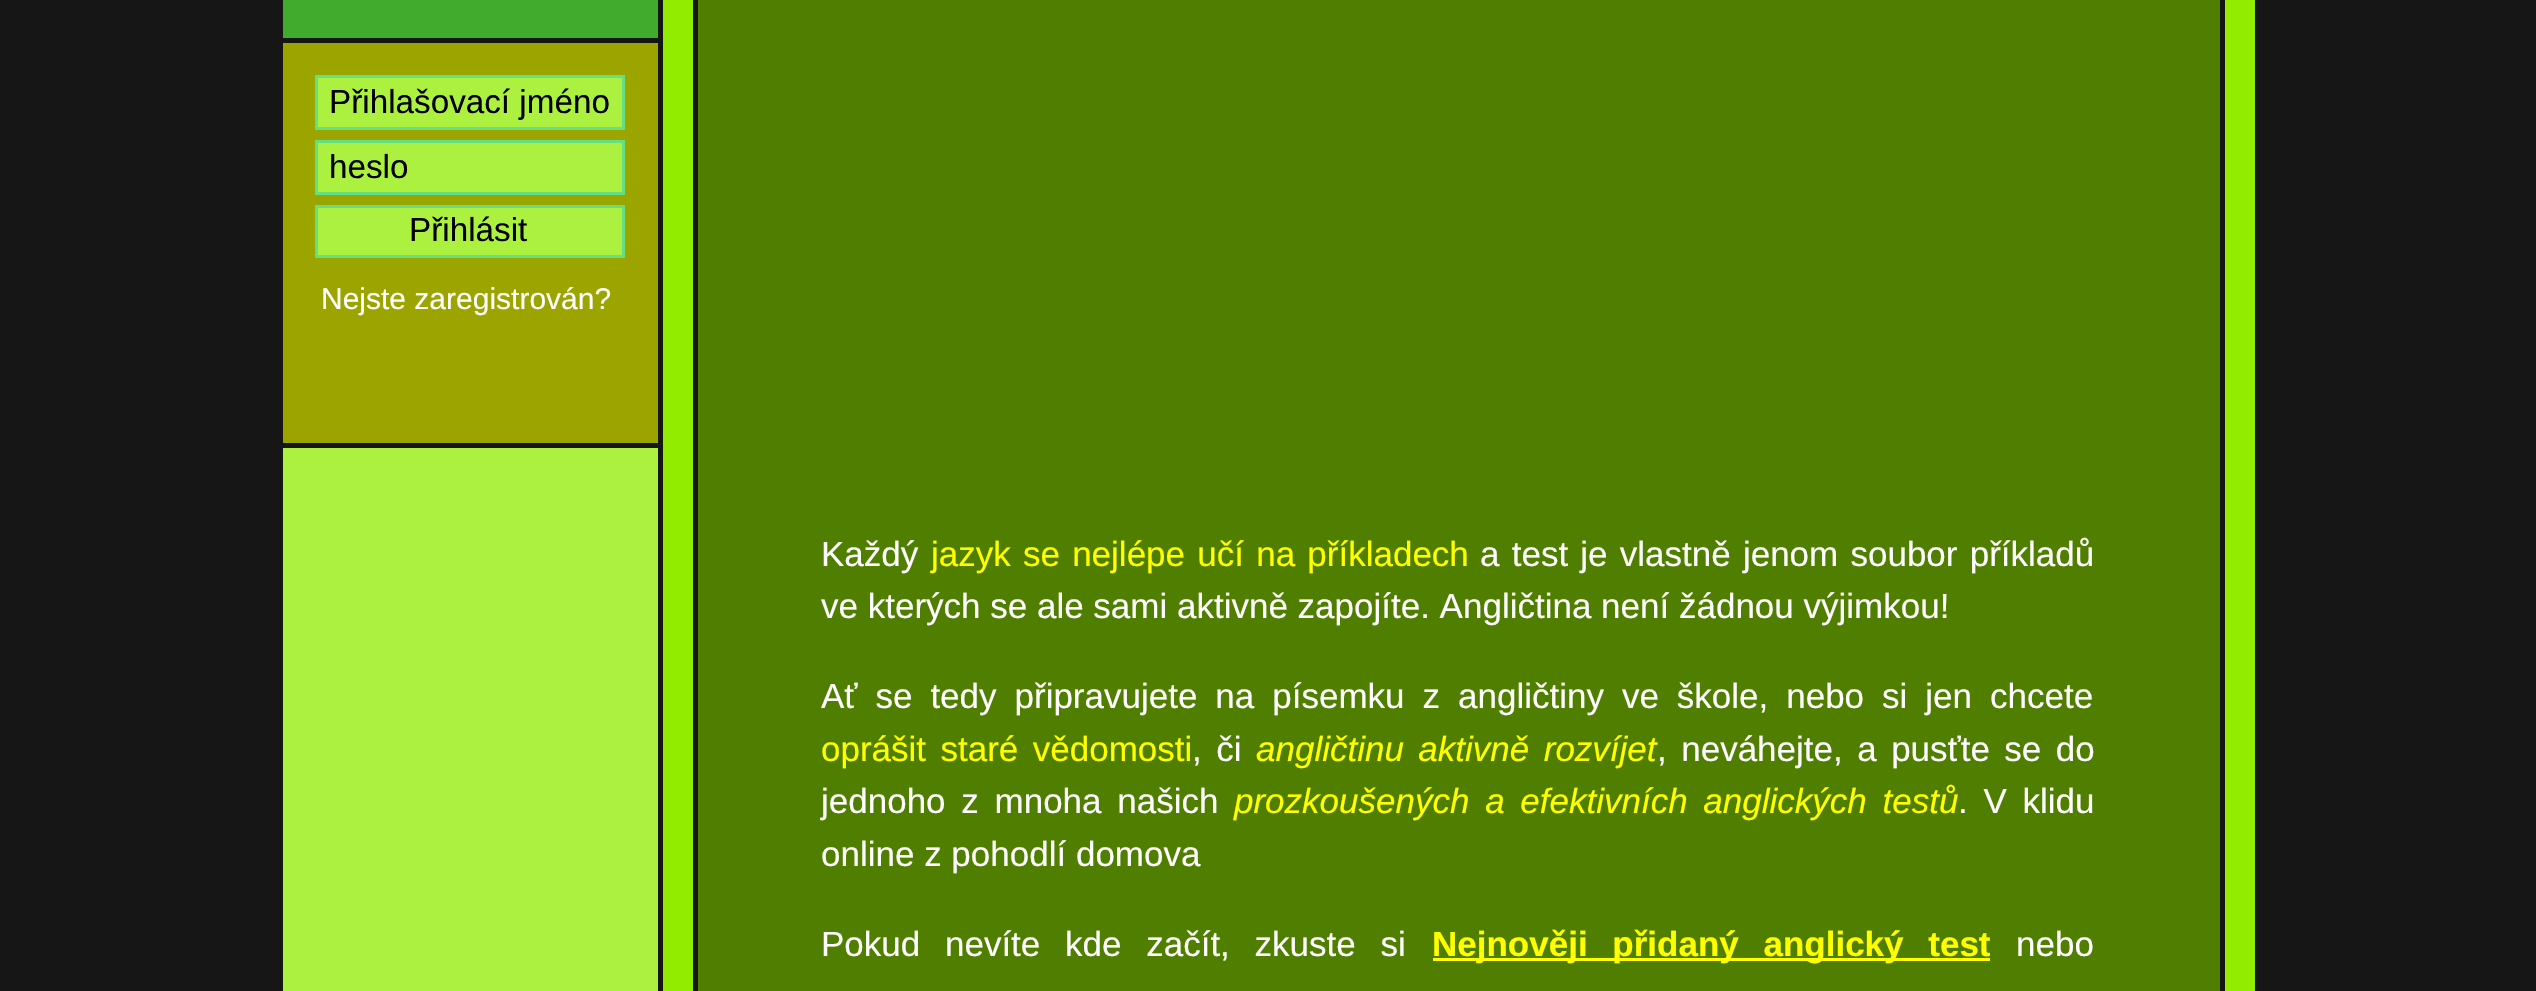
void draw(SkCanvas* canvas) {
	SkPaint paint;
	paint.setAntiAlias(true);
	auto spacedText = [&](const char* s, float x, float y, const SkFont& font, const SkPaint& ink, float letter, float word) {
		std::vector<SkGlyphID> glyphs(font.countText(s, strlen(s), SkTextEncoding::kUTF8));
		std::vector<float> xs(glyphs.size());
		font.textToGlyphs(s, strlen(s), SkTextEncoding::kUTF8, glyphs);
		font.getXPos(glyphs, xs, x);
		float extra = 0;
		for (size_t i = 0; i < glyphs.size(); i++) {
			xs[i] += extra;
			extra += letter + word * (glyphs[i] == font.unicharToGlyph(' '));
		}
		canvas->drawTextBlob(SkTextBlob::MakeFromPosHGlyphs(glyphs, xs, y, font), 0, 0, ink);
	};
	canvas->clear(0xff161616);
	paint.setColor(0xff41ab2e);
	canvas->drawRect(SkRect::MakeXYWH(283, 0, 375, 38), paint);
	paint.setColor(0xff9ca400);
	canvas->drawRect(SkRect::MakeXYWH(283, 43, 375, 400), paint);
	paint.setColor(0xffadf140);
	canvas->drawRect(SkRect::MakeXYWH(316.5, 76.5, 307, 52), paint);
	paint.setStroke(true);
	paint.setStrokeWidth(3);
	paint.setColor(0xff65e080);
	canvas->drawRect(SkRect::MakeXYWH(316.5, 76.5, 307, 52), paint);
	SkFont f1(fontMgr->matchFamilyStyle("Liberation Sans", SkFontStyle::Normal()), 33.25);
	f1.setSubpixel(true);
	paint.setStroke(false);
	paint.setColor(0xff000000);
	canvas->drawString("Přihlašovací jméno", 329, 113, f1, paint);
	paint.setColor(0xffadf140);
	canvas->drawRect(SkRect::MakeXYWH(316.5, 141.5, 307, 52), paint);
	paint.setStroke(true);
	paint.setColor(0xff65e080);
	canvas->drawRect(SkRect::MakeXYWH(316.5, 141.5, 307, 52), paint);
	paint.setStroke(false);
	paint.setColor(0xff000000);
	canvas->drawString("heslo", 329, 178, f1, paint);
	paint.setColor(0xffadf140);
	canvas->drawRect(SkRect::MakeXYWH(316.5, 206.5, 307, 50), paint);
	paint.setStroke(true);
	paint.setColor(0xff65e080);
	canvas->drawRect(SkRect::MakeXYWH(316.5, 206.5, 307, 50), paint);
	paint.setStroke(false);
	paint.setColor(0xff000000);
	canvas->drawString("Přihlásit", 409, 241, f1, paint);
	SkFont f2(fontMgr->matchFamilyStyle("Liberation Sans", SkFontStyle::Normal()), 30);
	f2.setSubpixel(true);
	paint.setColor(0xffffffff);
	canvas->drawString("Nejste zaregistrován?", 321, 309, f2, paint);
	paint.setColor(0xffadf140);
	canvas->drawRect(SkRect::MakeXYWH(283, 448, 375, 543), paint);
	paint.setColor(0xff4f7e00);
	canvas->drawRect(SkRect::MakeXYWH(698, 0, 1522, 991), paint);
	paint.setColor(0xff92ec00);
	canvas->drawRect(SkRect::MakeXYWH(663, 0, 30, 991), paint);
	SkFont f3(fontMgr->matchFamilyStyle("Liberation Sans", SkFontStyle::Normal()), 35);
	f3.setSubpixel(true);
	paint.setColor(0xffffffff);
	canvas->drawString("Každý", 821, 566, f3, paint);
	paint.setColor(0xffffff00);
	spacedText("jazyk se nejlépe učí na příkladech", 931, 566, f3, paint, 0, 2.5);
	paint.setColor(0xffffffff);
	spacedText("a test je vlastně jenom soubor příkladů", 1480, 566, f3, paint, 0, 2.5);
	canvas->drawString("ve kterých se ale sami aktivně zapojíte. Angličtina není žádnou výjimkou!", 821, 618, f3, paint);
	paint.setColor(0xff92ec00);
	canvas->drawRect(SkRect::MakeXYWH(2225, 0, 30, 991), paint);
	paint.setColor(0xffffffff);
	spacedText("Ať se tedy připravujete na písemku z angličtiny ve škole, nebo si jen chcete", 821, 708, f3, paint, 0, 8.25);
	paint.setColor(0xffffff00);
	spacedText("oprášit staré vědomosti", 821, 761, f3, paint, 0, 4.75);
	paint.setColor(0xffffffff);
	spacedText(", či", 1192, 761, f3, paint, 0, 4.75);
	SkFont f4(fontMgr->matchFamilyStyle("Liberation Sans", SkFontStyle::Italic()), 35);
	f4.setSubpixel(true);
	paint.setColor(0xffffff00);
	spacedText("angličtinu aktivně rozvíjet", 1256, 761, f4, paint, 0, 4.75);
	paint.setColor(0xffffffff);
	spacedText(", neváhejte, a pusťte se do", 1657, 761, f3, paint, 0, 4.75);
	spacedText("jednoho z mnoha našich", 821, 813, f3, paint, 0, 6);
	paint.setColor(0xffffff00);
	spacedText("prozkoušených a efektivních anglických testů", 1234, 813, f4, paint, 0, 6);
	paint.setColor(0xffffffff);
	spacedText(". V klidu", 1958, 813, f3, paint, 0, 6);
	canvas->drawString("online z pohodlí domova", 821, 866, f3, paint);
	spacedText("Pokud nevíte kde začít, zkuste si", 821, 956, f3, paint, 0, 15);
	paint.setColor(0xffffff00);
	canvas->drawRect(SkRect::MakeXYWH(1433, 958, 557, 3), paint);
	SkFont f5(fontMgr->matchFamilyStyle("Liberation Sans", SkFontStyle::Bold()), 35);
	f5.setSubpixel(true);
	spacedText("Nejnověji přidaný anglický test", 1432, 956, f5, paint, 0, 15);
	paint.setColor(0xffffffff);
	canvas->drawString("nebo", 2016, 956, f3, paint);
}
